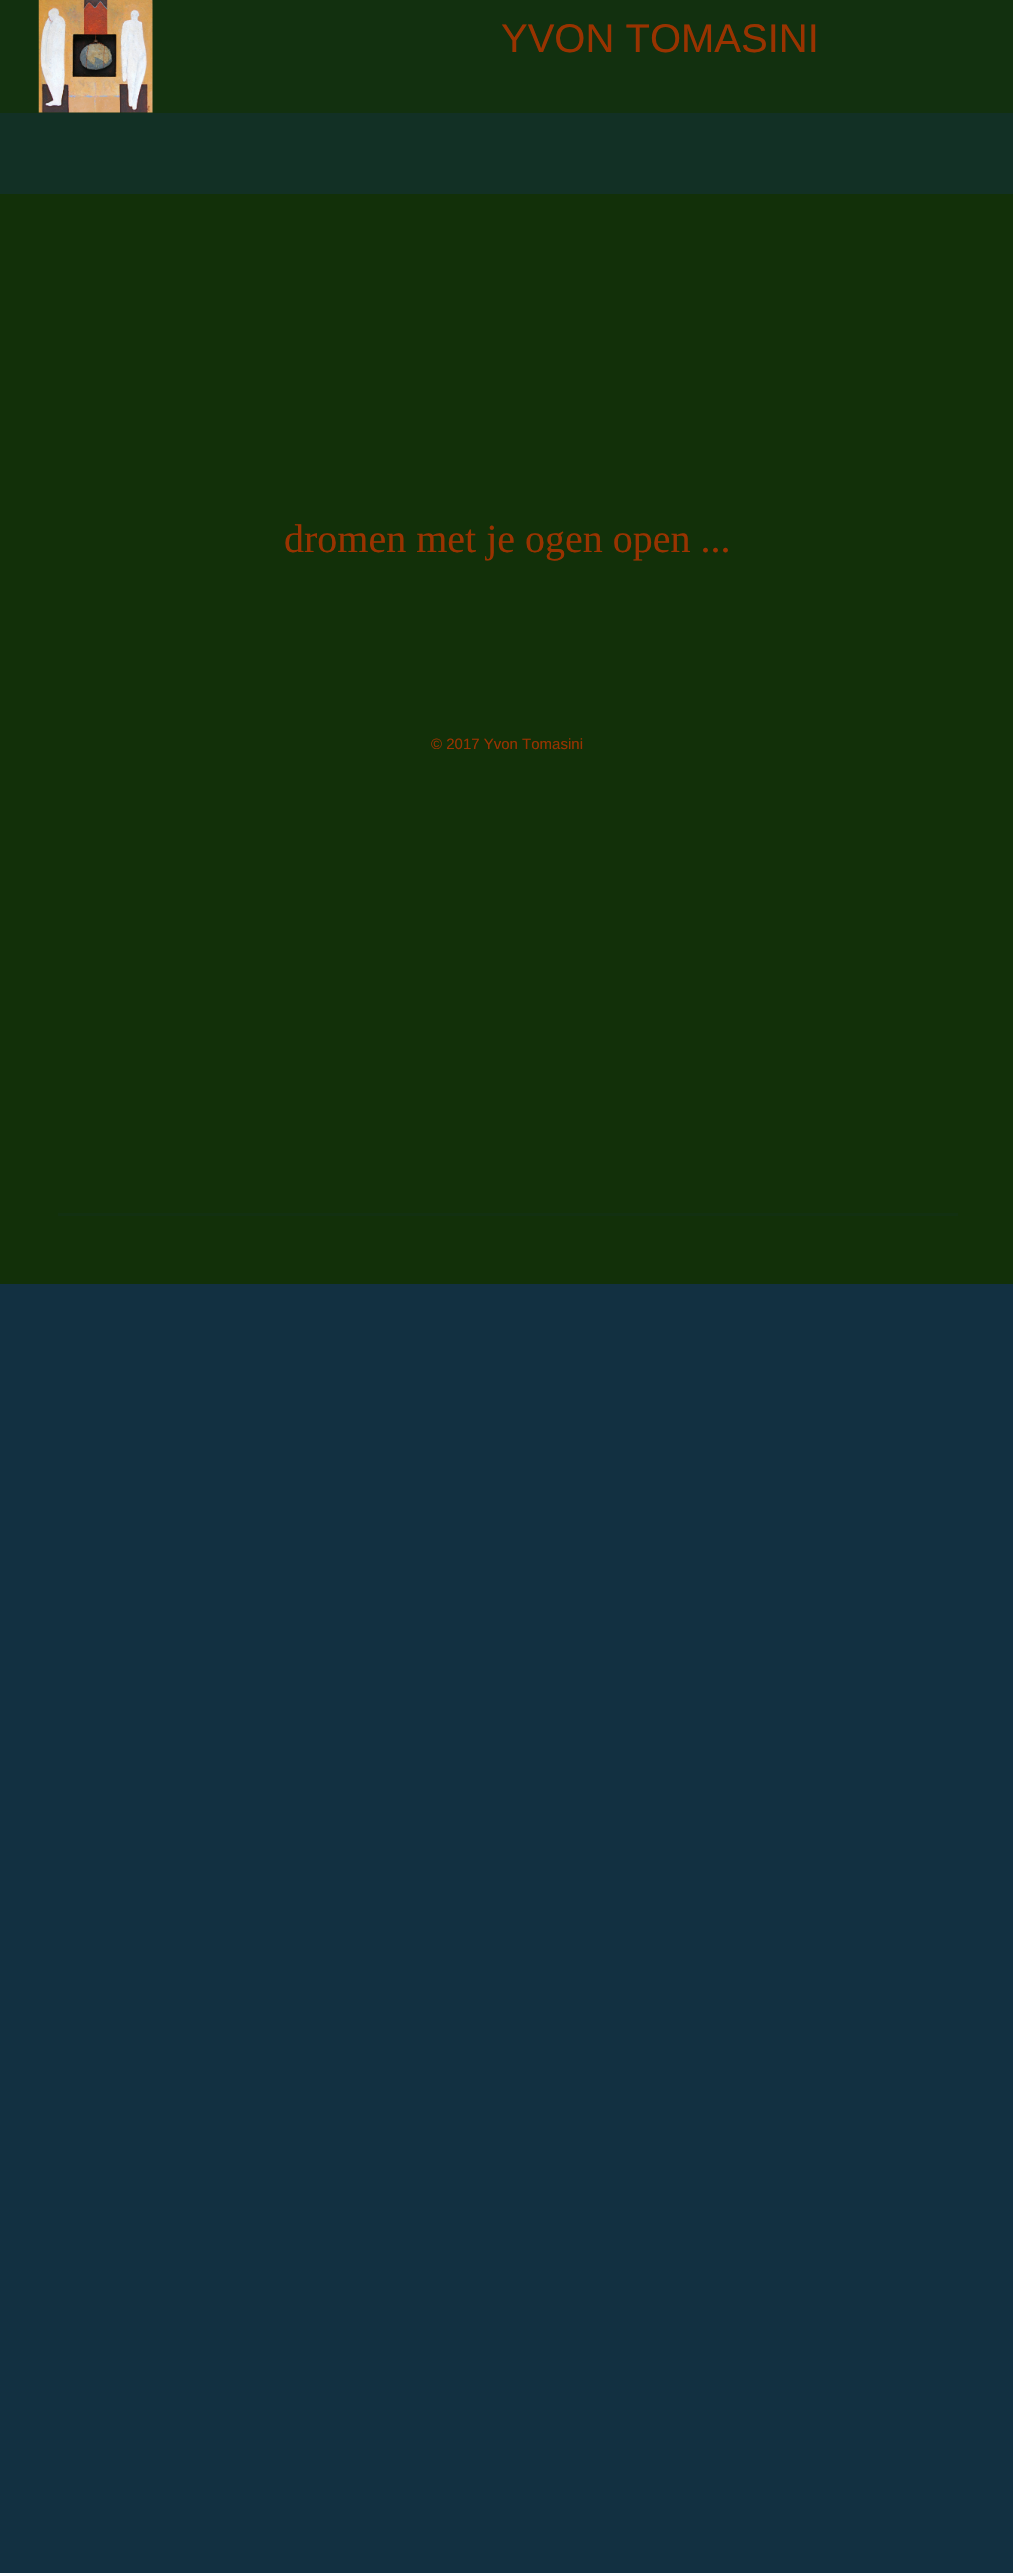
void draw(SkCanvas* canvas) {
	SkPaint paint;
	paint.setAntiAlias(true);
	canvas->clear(0xff123041);
	paint.setColor(0xff12300f);
	canvas->drawRect(SkRect::MakeXYWH(0, 0, 1013, 113), paint);
	canvas->drawImageRect(SkImages::DeferredFromEncodedData(SkData::MakeFromFileName("img1.png")), SkRect::MakeXYWH(38, 0, 115, 113), SkSamplingOptions());
	SkFont f1(fontMgr->matchFamilyStyle("Liberation Sans", SkFontStyle::Normal()), 40);
	f1.setSubpixel(true);
	paint.setColor(0xff993300);
	canvas->drawString("YVON TOMASINI", 501, 52, f1, paint);
	paint.setColor(0xff123025);
	canvas->drawRect(SkRect::MakeXYWH(0, 113, 1013, 81), paint);
	paint.setColor(0xff123009);
	canvas->drawRect(SkRect::MakeXYWH(0, 194, 1013, 1090), paint);
	paint.setColor(0xff123011);
	canvas->drawRect(SkRect::MakeXYWH(58, 1213, 900, 3), paint);
	SkFont f2(fontMgr->matchFamilyStyle("Liberation Serif", SkFontStyle::Normal()), 40);
	f2.setSubpixel(true);
	paint.setColor(0xff993300);
	canvas->drawString("dromen met je ogen open ...", 284, 552, f2, paint);
	SkFont f3(fontMgr->matchFamilyStyle("Liberation Sans", SkFontStyle::Normal()), 15);
	f3.setSubpixel(true);
	canvas->drawString("© 2017 Yvon Tomasini", 431, 749, f3, paint);
}
